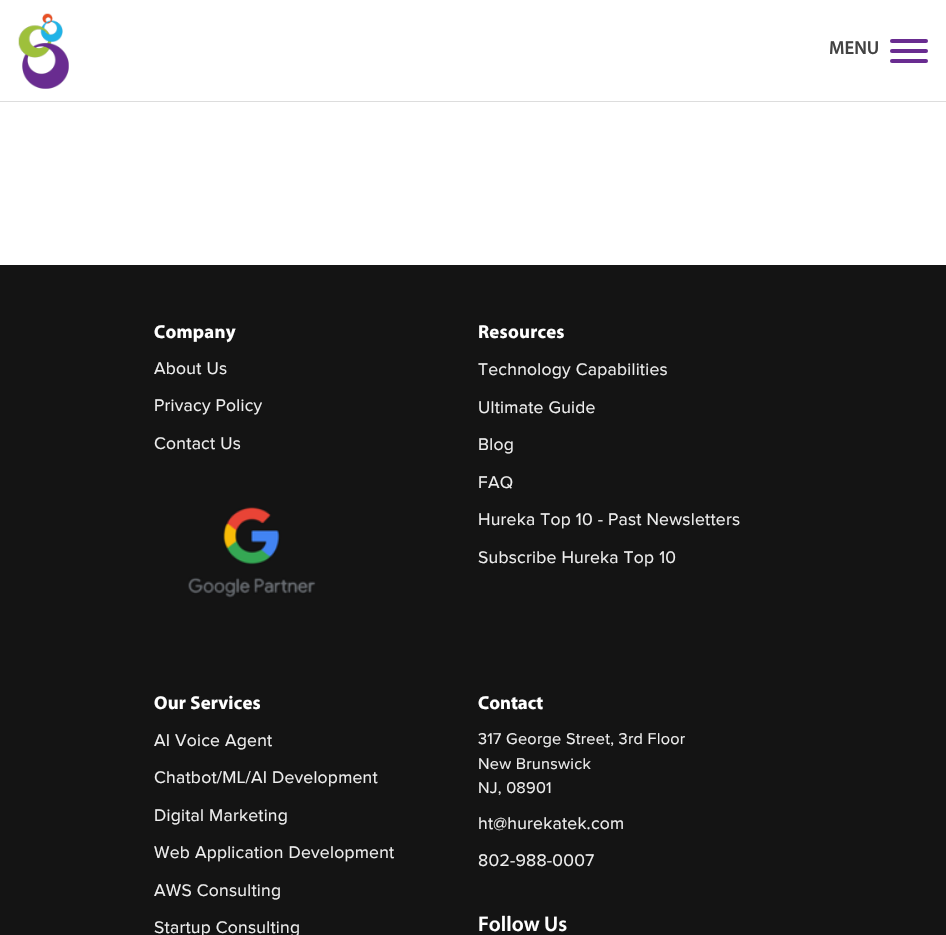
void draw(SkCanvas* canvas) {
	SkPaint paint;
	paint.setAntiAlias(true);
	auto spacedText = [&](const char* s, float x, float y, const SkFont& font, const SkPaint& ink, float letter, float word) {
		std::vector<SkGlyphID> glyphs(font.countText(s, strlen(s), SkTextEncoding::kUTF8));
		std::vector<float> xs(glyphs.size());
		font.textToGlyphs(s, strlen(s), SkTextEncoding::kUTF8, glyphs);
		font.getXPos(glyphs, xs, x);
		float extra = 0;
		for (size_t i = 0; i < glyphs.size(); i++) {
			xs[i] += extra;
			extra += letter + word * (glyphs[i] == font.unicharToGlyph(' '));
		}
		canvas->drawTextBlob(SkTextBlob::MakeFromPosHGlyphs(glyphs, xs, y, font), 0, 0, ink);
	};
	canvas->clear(0xffffffff);
	paint.setColor(0xffdddddd);
	canvas->drawRect(SkRect::MakeXYWH(0, 101, 946, 1), paint);
	canvas->drawImageRect(SkImages::DeferredFromEncodedData(SkData::MakeFromFileName("img1.png")), SkRect::MakeXYWH(18, 13, 51, 76), SkSamplingOptions());
	SkFont f1(fontMgr->matchFamilyStyle("Myriad", SkFontStyle(600, SkFontStyle::kNormal_Width, SkFontStyle::kUpright_Slant)), 18.75);
	f1.setSubpixel(true);
	paint.setColor(0xff424242);
	canvas->drawString("MENU", 829, 54, f1, paint);
	paint.setColor(0xff692c90);
	canvas->drawRoundRect(SkRect::MakeXYWH(890, 39, 38, 4), 2, 2, paint);
	canvas->drawRoundRect(SkRect::MakeXYWH(890, 49, 38, 4), 2, 2, paint);
	canvas->drawRoundRect(SkRect::MakeXYWH(890, 59, 38, 4), 2, 2, paint);
	paint.setColor(0xff141414);
	canvas->drawRect(SkRect::MakeXYWH(0, 265, 946, 670), paint);
	SkFont f2(fontMgr->matchFamilyStyle("Myriad", SkFontStyle::Bold()), 18.75);
	f2.setSubpixel(true);
	paint.setColor(0xffffffff);
	spacedText("Company", 154, 338, f2, paint, 0.25, 0);
	SkFont f3(fontMgr->matchFamilyStyle("Proxima Nova", SkFontStyle::Normal()), 17.5);
	f3.setSubpixel(true);
	paint.setColor(0xffeeeeee);
	spacedText("About Us", 154, 374, f3, paint, 0.25, 0);
	spacedText("Privacy Policy", 154, 411, f3, paint, 0.25, 0);
	spacedText("Contact Us", 154, 449, f3, paint, 0.25, 0);
	canvas->drawImageRect(SkImages::DeferredFromEncodedData(SkData::MakeFromFileName("img2.png")), SkRect::MakeXYWH(188, 507, 128, 91), SkSamplingOptions());
	paint.setColor(0xffffffff);
	spacedText("Resources", 478, 338, f2, paint, 0.25, 0);
	paint.setColor(0xffeeeeee);
	spacedText("Technology Capabilities", 478, 375, f3, paint, 0.25, 0);
	spacedText("Ultimate Guide", 478, 413, f3, paint, 0.25, 0);
	spacedText("Blog", 478, 450, f3, paint, 0.25, 0);
	spacedText("FAQ", 478, 488, f3, paint, 0.25, 0);
	spacedText("Hureka Top 10 - Past Newsletters", 478, 525, f3, paint, 0.25, 0);
	spacedText("Subscribe Hureka Top 10", 478, 563, f3, paint, 0.25, 0);
	paint.setColor(0xffffffff);
	spacedText("Our Services", 154, 709, f2, paint, 0.25, 0);
	paint.setColor(0xffeeeeee);
	spacedText("AI Voice Agent", 154, 746, f3, paint, 0.25, 0);
	spacedText("Chatbot/ML/AI Development", 154, 783, f3, paint, 0.25, 0);
	spacedText("Digital Marketing", 154, 821, f3, paint, 0.25, 0);
	spacedText("Web Application Development", 154, 858, f3, paint, 0.25, 0);
	spacedText("AWS Consulting", 154, 896, f3, paint, 0.25, 0);
	spacedText("Startup Consulting", 154, 933, f3, paint, 0.25, 0);
	paint.setColor(0xffffffff);
	canvas->drawString("Contact", 478, 709, f2, paint);
	SkFont f4(fontMgr->matchFamilyStyle("Proxima Nova", SkFontStyle::Normal()), 16.25);
	f4.setSubpixel(true);
	paint.setColor(0xffeeeeee);
	spacedText("317 George Street, 3rd Floor", 478, 744, f4, paint, 0.25, 0);
	spacedText("New Brunswick", 478, 769, f4, paint, 0.25, 0);
	spacedText("NJ, 08901", 478, 793, f4, paint, 0.25, 0);
	spacedText("ht@hurekatek.com", 478, 829, f3, paint, 0.25, 0);
	spacedText("802-988-0007", 478, 866, f3, paint, 0.25, 0);
	SkFont f5(fontMgr->matchFamilyStyle("Myriad", SkFontStyle(600, SkFontStyle::kNormal_Width, SkFontStyle::kUpright_Slant)), 21.25);
	f5.setSubpixel(true);
	paint.setColor(0xffffffff);
	canvas->drawString("Follow Us", 478, 931, f5, paint);
}
